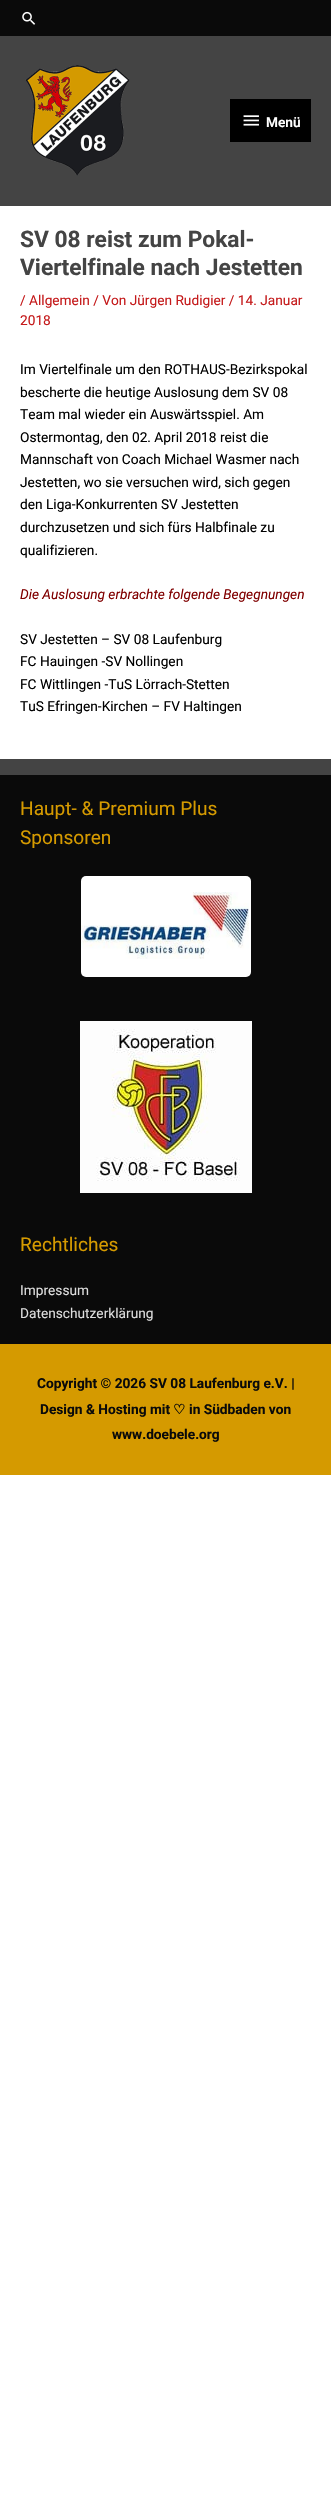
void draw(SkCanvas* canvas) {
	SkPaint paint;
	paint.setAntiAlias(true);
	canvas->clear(0xffffffff);
	paint.setColor(0xff0a0a0a);
	canvas->drawRect(SkRect::MakeXYWH(0, 0, 331, 36), paint);
	canvas->drawImageRect(SkImages::DeferredFromEncodedData(SkData::MakeFromFileName("img1.png")), SkRect::MakeXYWH(22, 11, 14, 14), SkSamplingOptions());
	paint.setColor(0xff444444);
	canvas->drawRect(SkRect::MakeXYWH(0, 36, 331, 170), paint);
	canvas->drawImageRect(SkImages::DeferredFromEncodedData(SkData::MakeFromFileName("img2.png")), SkRect::MakeXYWH(25, 65, 105, 111), SkSamplingOptions());
	paint.setColor(0xff000000);
	canvas->drawRect(SkRect::MakeXYWH(230, 99, 81, 43), paint);
	canvas->drawImageRect(SkImages::DeferredFromEncodedData(SkData::MakeFromFileName("img3.png")), SkRect::MakeXYWH(243, 115, 16, 11), SkSamplingOptions());
	SkFont f1(fontMgr->matchFamilyStyle("Roboto", SkFontStyle(600, SkFontStyle::kNormal_Width, SkFontStyle::kUpright_Slant)), 13.7);
	f1.setSubpixel(true);
	paint.setColor(0xffffffff);
	canvas->drawString("Menü", 266, 127, f1, paint);
	SkFont f2(fontMgr->matchFamilyStyle("Roboto", SkFontStyle::Bold()), 22.75);
	f2.setSubpixel(true);
	paint.setColor(0xff444444);
	canvas->drawString("SV 08 reist zum Pokal-", 20, 247, f2, paint);
	canvas->drawString("Viertelfinale nach Jestetten", 20, 275, f2, paint);
	SkFont f3(fontMgr->matchFamilyStyle("Roboto", SkFontStyle::Normal()), 13.7);
	f3.setSubpixel(true);
	paint.setColor(0xffc51b1c);
	canvas->drawString("/ Allgemein / Von Jürgen Rudigier / 14. Januar", 20, 305, f3, paint);
	canvas->drawString("2018", 20, 325, f3, paint);
	paint.setColor(0xff000000);
	canvas->drawString("Im Viertelfinale um den ROTHAUS-Bezirkspokal", 20, 374, f3, paint);
	canvas->drawString("bescherte die heutige Auslosung dem SV 08", 20, 397, f3, paint);
	canvas->drawString("Team mal wieder ein Auswärtsspiel. Am", 20, 419, f3, paint);
	canvas->drawString("Ostermontag, den 02. April 2018 reist die", 20, 442, f3, paint);
	canvas->drawString("Mannschaft von Coach Michael Wasmer nach", 20, 464, f3, paint);
	canvas->drawString("Jestetten, wo sie versuchen wird, sich gegen", 20, 487, f3, paint);
	canvas->drawString("den Liga-Konkurrenten SV Jestetten", 20, 509, f3, paint);
	canvas->drawString("durchzusetzen und sich fürs Halbfinale zu", 20, 532, f3, paint);
	canvas->drawString("qualifizieren.", 20, 555, f3, paint);
	SkFont f4(fontMgr->matchFamilyStyle("Roboto", SkFontStyle::Italic()), 13.7);
	f4.setSubpixel(true);
	paint.setColor(0xff800000);
	canvas->drawString("Die Auslosung erbrachte folgende Begegnungen", 20, 599, f4, paint);
	paint.setColor(0xff000000);
	canvas->drawString("SV Jestetten – SV 08 Laufenburg", 20, 644, f3, paint);
	canvas->drawString("FC Hauingen -SV Nollingen", 20, 666, f3, paint);
	canvas->drawString("FC Wittlingen -TuS Lörrach-Stetten", 20, 689, f3, paint);
	canvas->drawString("TuS Efringen-Kirchen – FV Haltingen", 20, 711, f3, paint);
	paint.setColor(0xff0a0a0a);
	canvas->drawRect(SkRect::MakeXYWH(0, 775, 331, 569), paint);
	paint.setColor(0xff444444);
	canvas->drawRect(SkRect::MakeXYWH(0, 759, 331, 16), paint);
	SkFont f5(fontMgr->matchFamilyStyle("Roboto", SkFontStyle::Normal()), 19.1);
	f5.setSubpixel(true);
	paint.setColor(0xffd59a00);
	canvas->drawString("Haupt- & Premium Plus", 20, 815, f5, paint);
	canvas->drawString("Sponsoren", 20, 844, f5, paint);
	paint.setColor(0xffffffff);
	canvas->drawRoundRect(SkRect::MakeXYWH(81, 876, 170, 101), 5, 5, paint);
	canvas->drawImageRect(SkImages::DeferredFromEncodedData(SkData::MakeFromFileName("img4.png")), SkRect::MakeXYWH(81, 892, 168, 67), SkSamplingOptions());
	canvas->drawImageRect(SkImages::DeferredFromEncodedData(SkData::MakeFromFileName("img5.png")), SkRect::MakeXYWH(80, 1021, 172, 172), SkSamplingOptions());
	paint.setColor(0xffd59a00);
	canvas->drawString("Rechtliches", 20, 1251, f5, paint);
	paint.setColor(0xffdddddd);
	canvas->drawString("Impressum", 20, 1295, f3, paint);
	canvas->drawString("Datenschutzerklärung", 20, 1318, f3, paint);
	paint.setColor(0xffd59a00);
	canvas->drawRect(SkRect::MakeXYWH(0, 1344, 331, 131), paint);
	SkFont f6(fontMgr->matchFamilyStyle("Roboto", SkFontStyle::Bold()), 13.7);
	f6.setSubpixel(true);
	paint.setColor(0xff0a0a0a);
	canvas->drawString("Copyright © 2026 SV 08 Laufenburg e.V. |", 37, 1388, f6, paint);
	canvas->drawString("Design & Hosting mit", 40, 1414, f6, paint);
	SkFont f7(fontMgr->matchFamilyStyle("DejaVu Sans", SkFontStyle::Bold()), 13.7);
	f7.setSubpixel(true);
	canvas->drawString("♡", 173, 1414, f7, paint);
	canvas->drawString("in Südbaden von", 189, 1414, f6, paint);
	canvas->drawString("www.doebele.org", 112, 1439, f6, paint);
}
